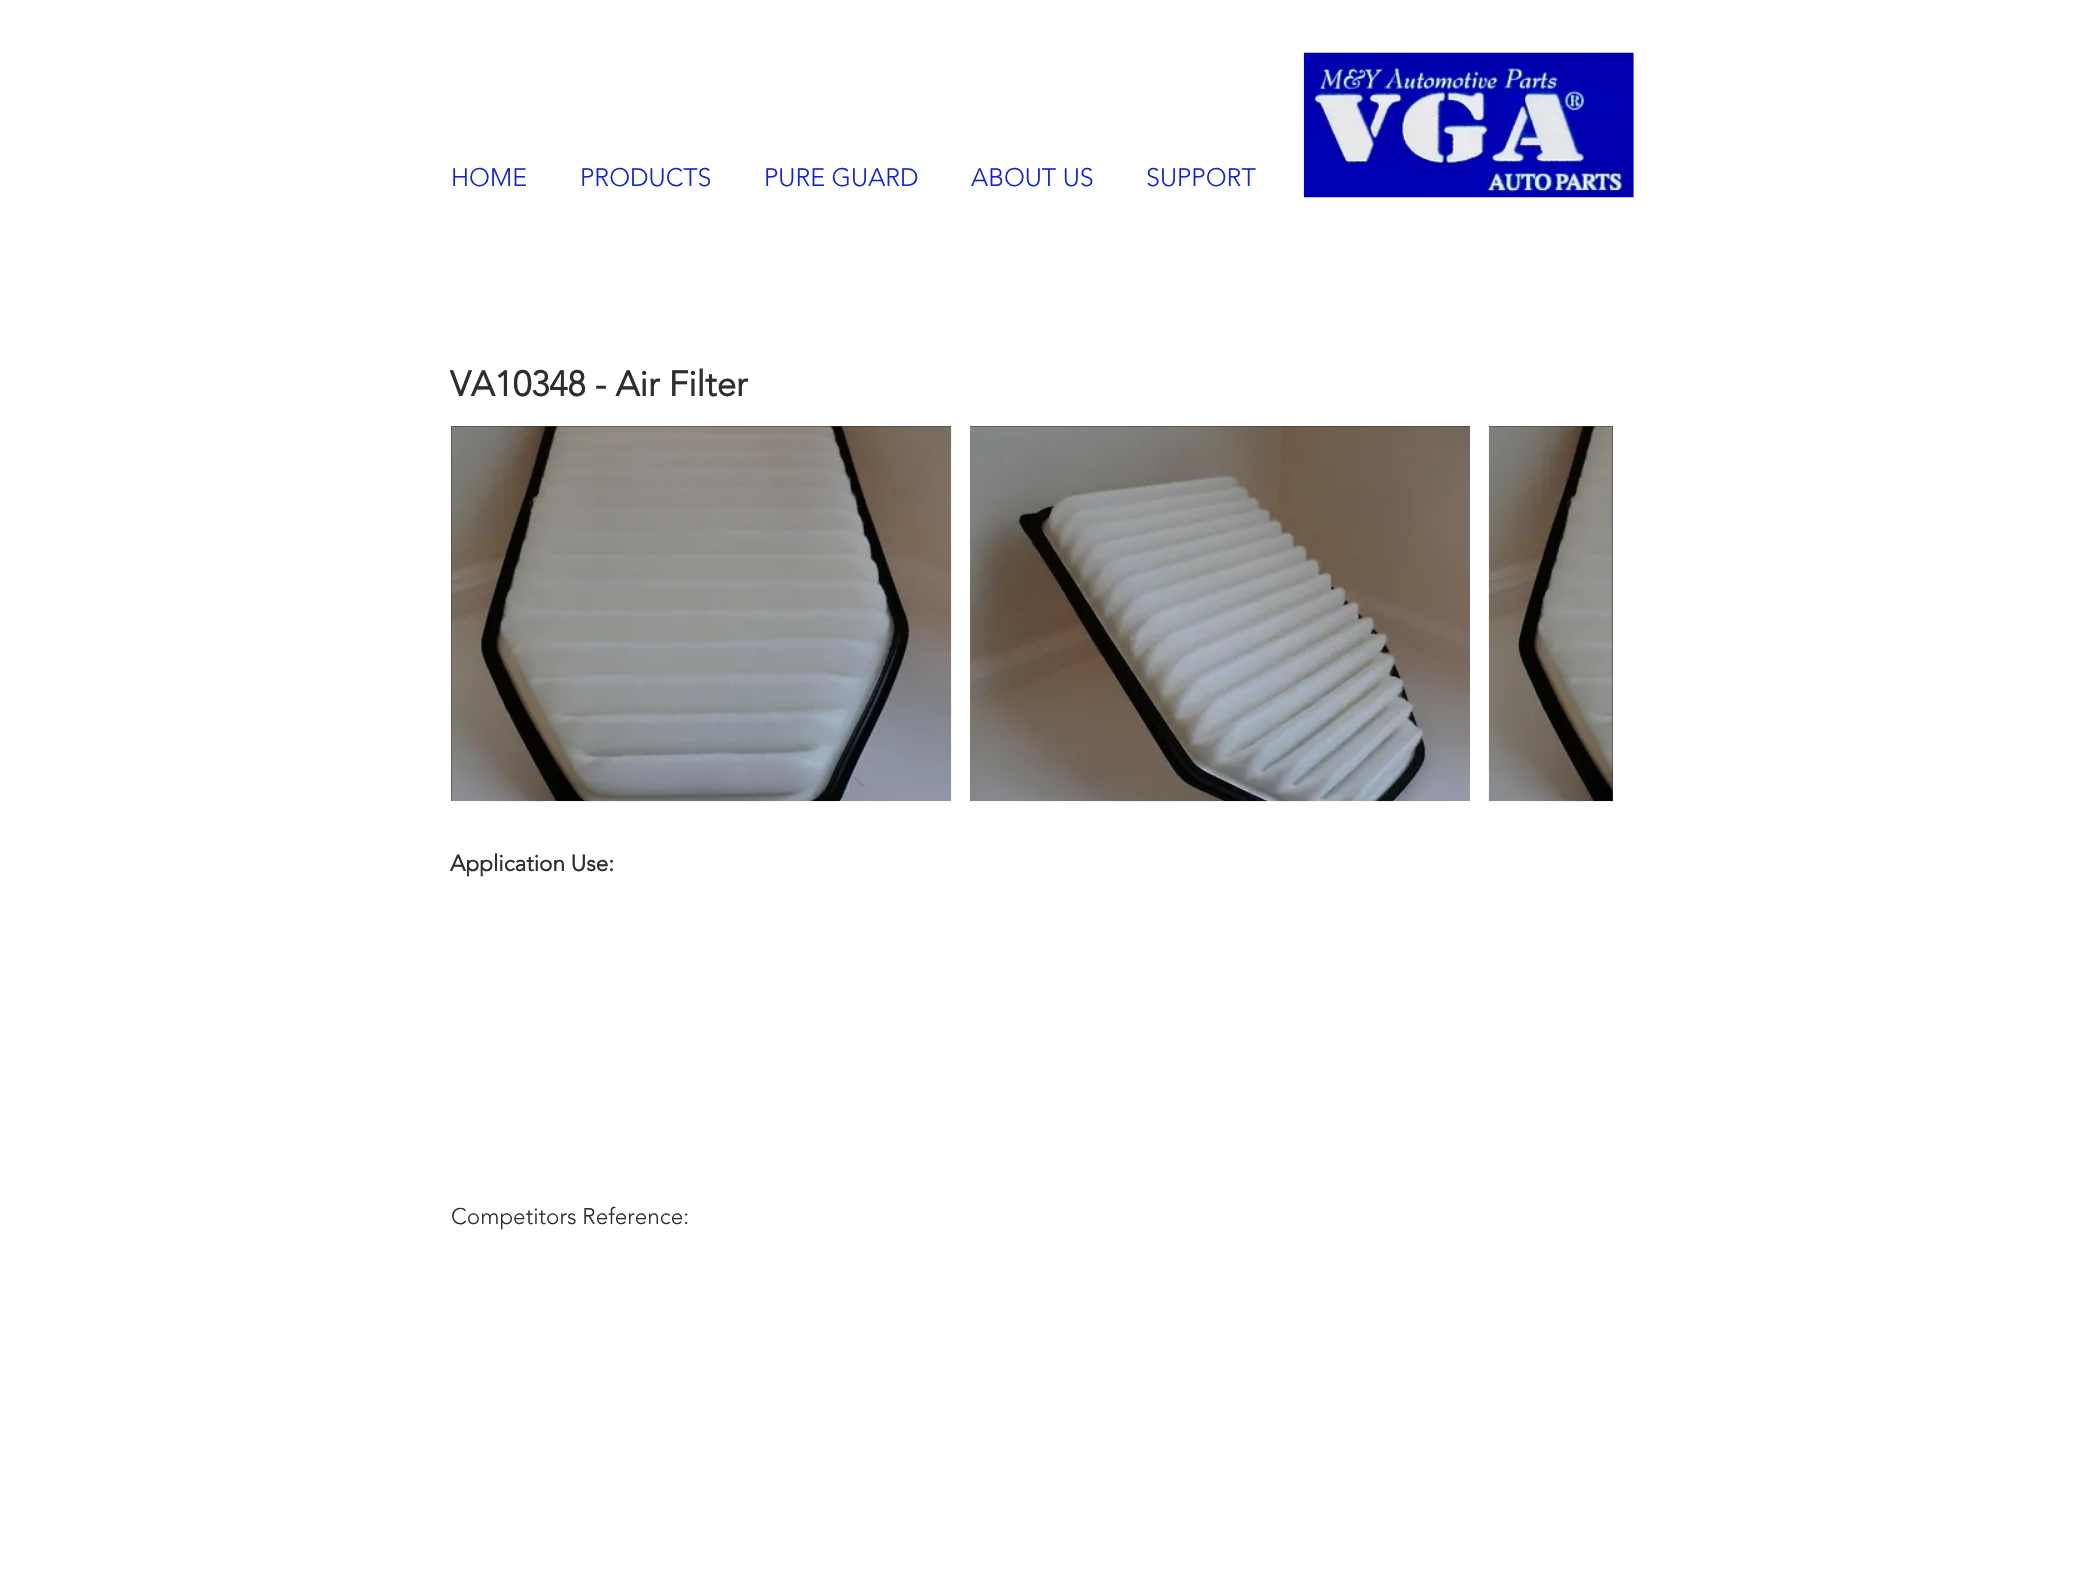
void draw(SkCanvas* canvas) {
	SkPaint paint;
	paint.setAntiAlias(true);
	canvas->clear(0xffffffff);
	SkFont f1(fontMgr->matchFamilyStyle("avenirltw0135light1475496", SkFontStyle(300, SkFontStyle::kNormal_Width, SkFontStyle::kUpright_Slant)), 25);
	f1.setSubpixel(true);
	paint.setColor(0xff1426c9);
	canvas->drawString("HOME", 451, 186, f1, paint);
	canvas->drawString("PRODUCTS", 580, 186, f1, paint);
	canvas->drawString("PURE GUARD", 764, 186, f1, paint);
	canvas->drawString("ABOUT US", 971, 186, f1, paint);
	canvas->drawString("SUPPORT", 1146, 186, f1, paint);
	canvas->drawImageRect(SkImages::DeferredFromEncodedData(SkData::MakeFromFileName("img1.png")), SkRect::MakeXYWH(1303, 52, 331, 146), SkSamplingOptions());
	SkFont f2(fontMgr->matchFamilyStyle("avenirltw0135light1475496", SkFontStyle::Bold()), 35);
	f2.setSubpixel(true);
	paint.setColor(0xff2f2e2e);
	canvas->drawString("VA10348 - Air Filter", 450, 396, f2, paint);
	canvas->drawRect(SkRect::MakeXYWH(451, 426, 500, 375), paint);
	canvas->drawImageRect(SkImages::DeferredFromEncodedData(SkData::MakeFromFileName("img2.png")), SkRect::MakeXYWH(451, 426, 501, 376), SkSamplingOptions());
	canvas->drawRect(SkRect::MakeXYWH(970, 426, 500, 1), paint);
	canvas->drawImageRect(SkImages::DeferredFromEncodedData(SkData::MakeFromFileName("img3.png")), SkRect::MakeXYWH(970, 426, 500, 376), SkSamplingOptions());
	canvas->drawRect(SkRect::MakeXYWH(1489, 426, 124, 375), paint);
	canvas->drawImageRect(SkImages::DeferredFromEncodedData(SkData::MakeFromFileName("img4.png")), SkRect::MakeXYWH(1488, 426, 125, 376), SkSamplingOptions());
	SkFont f3(fontMgr->matchFamilyStyle("avenirltw0135light1475496", SkFontStyle::Bold()), 22.5);
	f3.setSubpixel(true);
	canvas->drawString("Application Use:", 450, 871, f3, paint);
	SkFont f4(fontMgr->matchFamilyStyle("avenirltw0135light1475496", SkFontStyle(300, SkFontStyle::kNormal_Width, SkFontStyle::kUpright_Slant)), 22.5);
	f4.setSubpixel(true);
	canvas->drawString("Competitors Reference:", 451, 1224, f4, paint);
}
